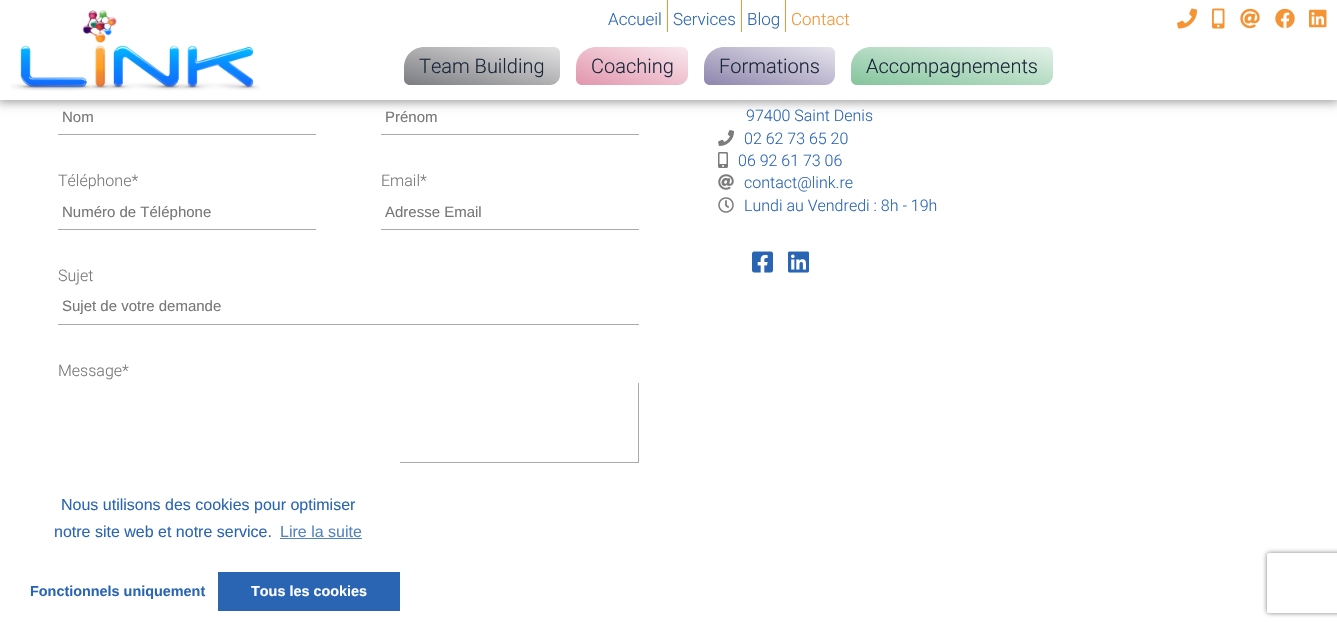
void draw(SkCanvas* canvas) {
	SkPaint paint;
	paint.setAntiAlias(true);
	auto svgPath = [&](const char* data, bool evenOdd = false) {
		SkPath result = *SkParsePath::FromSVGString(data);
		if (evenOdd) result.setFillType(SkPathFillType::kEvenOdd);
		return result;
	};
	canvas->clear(0xffffffff);
	paint.setColor(0xff999999);
	paint.setMaskFilter(SkMaskFilter::MakeBlur(kNormal_SkBlurStyle, 5));
	canvas->drawRect(SkRect::MakeXYWH(-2, -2, 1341, 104), paint);
	paint.setMaskFilter(nullptr);
	paint.setColor(0xffffffff);
	canvas->drawRect(SkRect::MakeXYWH(0, 0, 1337, 100), paint);
	canvas->drawImageRect(SkImages::DeferredFromEncodedData(SkData::MakeFromFileName("img1.png")), SkRect::MakeXYWH(10, 10, 250, 81), SkSamplingOptions());
	SkFont f1(fontMgr->matchFamilyStyle("Roboto", SkFontStyle(300, SkFontStyle::kNormal_Width, SkFontStyle::kUpright_Slant)), 17);
	f1.setSubpixel(true);
	paint.setColor(0xff2a65b4);
	canvas->drawString("Accueil", 608, 25, f1, paint);
	paint.setColor(0xfff49435);
	canvas->drawRect(SkRect::MakeXYWH(667, 0, 1, 32), paint);
	paint.setColor(0xff2a65b4);
	canvas->drawString("Services", 673, 25, f1, paint);
	paint.setColor(0xfff49435);
	canvas->drawRect(SkRect::MakeXYWH(741, 0, 1, 32), paint);
	paint.setColor(0xff2a65b4);
	canvas->drawString("Blog", 747, 25, f1, paint);
	paint.setColor(0xfff49435);
	canvas->drawRect(SkRect::MakeXYWH(785, 0, 1, 32), paint);
	canvas->drawString("Contact", 791, 25, f1, paint);
	{
		const SkColor colors[] = {0xff7c7d81, 0xffe2e2e3};
		const float stops[] = {0, 1};
		const SkPoint ends[] = {{473, 102}, {491, 30}};
		paint.setShader(SkGradientShader::MakeLinear(ends, colors, stops, 2, SkTileMode::kClamp));
		paint.setAlpha(255);
	}
	canvas->drawPath(svgPath("M424 47H554C557.5 47 560 49.5 560 53V75C560 80.5 555.5 85 550 85H410C406.5 85 404 82.5 404 79V67C404 56 413 47 424 47Z"), paint);
	SkFont f2(fontMgr->matchFamilyStyle("Roboto", SkFontStyle(300, SkFontStyle::kNormal_Width, SkFontStyle::kUpright_Slant)), 20);
	f2.setSubpixel(true);
	paint.setShader(nullptr);
	paint.setColor(0xff1a2639);
	canvas->drawString("Team Building", 419, 73, f2, paint);
	{
		const SkColor colors[] = {0xffe296ae, 0xfff9e8ed};
		const float stops[] = {0, 1};
		const SkPoint ends[] = {{620, 100}, {644, 32}};
		paint.setShader(SkGradientShader::MakeLinear(ends, colors, stops, 2, SkTileMode::kClamp));
		paint.setAlpha(255);
	}
	canvas->drawPath(svgPath("M596 47H682C685.5 47 688 49.5 688 53V75C688 80.5 683.5 85 678 85H582C578.5 85 576 82.5 576 79V67C576 56 585 47 596 47Z"), paint);
	paint.setShader(nullptr);
	paint.setColor(0xff1a2639);
	canvas->drawString("Coaching", 591, 73, f2, paint);
	{
		const SkColor colors[] = {0xff8f86ad, 0xffe6e4ed};
		const float stops[] = {0, 1};
		const SkPoint ends[] = {{759, 101}, {780, 31}};
		paint.setShader(SkGradientShader::MakeLinear(ends, colors, stops, 2, SkTileMode::kClamp));
		paint.setAlpha(255);
	}
	canvas->drawPath(svgPath("M724 47H829C832.5 47 835 49.5 835 53V75C835 80.5 830.5 85 825 85H710C706.5 85 704 82.5 704 79V67C704 56 713 47 724 47Z"), paint);
	paint.setShader(nullptr);
	paint.setColor(0xff1a2639);
	canvas->drawString("Formations", 719, 73, f2, paint);
	{
		const SkColor colors[] = {0xff84c49c, 0xffe4f2e9};
		const float stops[] = {0, 1};
		const SkPoint ends[] = {{945, 103}, {959, 29}};
		paint.setShader(SkGradientShader::MakeLinear(ends, colors, stops, 2, SkTileMode::kClamp));
		paint.setAlpha(255);
	}
	canvas->drawPath(svgPath("M871 47H1047C1050.5 47 1053 49.5 1053 53V75C1053 80.5 1048.5 85 1043 85H857C853.5 85 851 82.5 851 79V67C851 56 860 47 871 47Z"), paint);
	paint.setShader(nullptr);
	paint.setColor(0xff1a2639);
	canvas->drawString("Accompagnements", 866, 73, f2, paint);
	canvas->drawImageRect(SkImages::DeferredFromEncodedData(SkData::MakeFromFileName("img2.png")), SkRect::MakeXYWH(1177, 8, 20, 21), SkSamplingOptions());
	canvas->drawImageRect(SkImages::DeferredFromEncodedData(SkData::MakeFromFileName("img3.png")), SkRect::MakeXYWH(1212, 8, 13, 21), SkSamplingOptions());
	canvas->drawImageRect(SkImages::DeferredFromEncodedData(SkData::MakeFromFileName("img4.png")), SkRect::MakeXYWH(1240, 8, 20, 21), SkSamplingOptions());
	canvas->drawImageRect(SkImages::DeferredFromEncodedData(SkData::MakeFromFileName("img5.png")), SkRect::MakeXYWH(1275, 8, 20, 20), SkSamplingOptions());
	canvas->drawImageRect(SkImages::DeferredFromEncodedData(SkData::MakeFromFileName("img6.png")), SkRect::MakeXYWH(1309, 9, 18, 19), SkSamplingOptions());
	paint.setColor(0xffaaaaaa);
	canvas->drawRect(SkRect::MakeXYWH(58, 134, 258, 1), paint);
	SkFont f3(fontMgr->matchFamilyStyle("Liberation Sans", SkFontStyle::Normal()), 15);
	f3.setSubpixel(true);
	paint.setColor(0xff777777);
	canvas->drawString("Nom", 62, 122, f3, paint);
	paint.setColor(0xffaaaaaa);
	canvas->drawRect(SkRect::MakeXYWH(381, 134, 258, 1), paint);
	paint.setColor(0xff777777);
	canvas->drawString("Prénom", 385, 122, f3, paint);
	SkFont f4(fontMgr->matchFamilyStyle("Roboto", SkFontStyle(300, SkFontStyle::kNormal_Width, SkFontStyle::kUpright_Slant)), 16);
	f4.setSubpixel(true);
	canvas->drawString("Téléphone*", 58, 186, f4, paint);
	paint.setColor(0xffaaaaaa);
	canvas->drawRect(SkRect::MakeXYWH(58, 229, 258, 1), paint);
	paint.setColor(0xff777777);
	canvas->drawString("Numéro de Téléphone", 62, 217, f3, paint);
	canvas->drawString("Email*", 381, 186, f4, paint);
	paint.setColor(0xffaaaaaa);
	canvas->drawRect(SkRect::MakeXYWH(381, 229, 258, 1), paint);
	paint.setColor(0xff777777);
	canvas->drawString("Adresse Email", 385, 217, f3, paint);
	canvas->drawString("Sujet", 58, 281, f4, paint);
	paint.setColor(0xffaaaaaa);
	canvas->drawRect(SkRect::MakeXYWH(58, 324, 581, 1), paint);
	paint.setColor(0xff777777);
	canvas->drawString("Sujet de votre demande", 62, 311, f3, paint);
	canvas->drawString("Message*", 58, 376, f4, paint);
	paint.setColor(0xffaaaaaa);
	canvas->drawRect(SkRect::MakeXYWH(638, 383, 1, 80), paint);
	canvas->drawRect(SkRect::MakeXYWH(400, 462, 239, 1), paint);
	paint.setColor(0xff2a65b4);
	canvas->drawString("97400 Saint Denis", 746, 121, f4, paint);
	canvas->drawImageRect(SkImages::DeferredFromEncodedData(SkData::MakeFromFileName("img7.png")), SkRect::MakeXYWH(718, 130, 16, 16), SkSamplingOptions());
	canvas->drawString("02 62 73 65 20", 744, 144, f4, paint);
	canvas->drawImageRect(SkImages::DeferredFromEncodedData(SkData::MakeFromFileName("img8.png")), SkRect::MakeXYWH(718, 152, 10, 16), SkSamplingOptions());
	canvas->drawString("06 92 61 73 06", 738, 166, f4, paint);
	canvas->drawImageRect(SkImages::DeferredFromEncodedData(SkData::MakeFromFileName("img9.png")), SkRect::MakeXYWH(718, 174, 16, 16), SkSamplingOptions());
	canvas->drawString("contact@link.re", 744, 188, f4, paint);
	canvas->drawImageRect(SkImages::DeferredFromEncodedData(SkData::MakeFromFileName("img10.png")), SkRect::MakeXYWH(718, 197, 16, 16), SkSamplingOptions());
	canvas->drawString("Lundi au Vendredi : 8h - 19h", 744, 211, f4, paint);
	canvas->drawImageRect(SkImages::DeferredFromEncodedData(SkData::MakeFromFileName("img11.png")), SkRect::MakeXYWH(752, 251, 21, 22), SkSamplingOptions());
	canvas->drawImageRect(SkImages::DeferredFromEncodedData(SkData::MakeFromFileName("img12.png")), SkRect::MakeXYWH(788, 251, 21, 22), SkSamplingOptions());
	SkFont f5(fontMgr->matchFamilyStyle("Liberation Sans", SkFontStyle::Normal()), 16);
	f5.setSubpixel(true);
	canvas->drawString("Nous utilisons des cookies pour optimiser", 61, 510, f5, paint);
	canvas->drawString("notre site web et notre service.", 54, 537, f5, paint);
	paint.setColor(0xff5584c3);
	canvas->drawString("Lire la suite", 280, 537, f5, paint);
	canvas->drawRect(SkRect::MakeXYWH(280, 538, 82, 1), paint);
	SkFont f6(fontMgr->matchFamilyStyle("Liberation Sans", SkFontStyle::Bold()), 14.4);
	f6.setSubpixel(true);
	paint.setColor(0xff2a65b4);
	canvas->drawString("Fonctionnels uniquement", 30, 596, f6, paint);
	canvas->drawRect(SkRect::MakeXYWH(218, 572, 182, 39), paint);
	paint.setColor(0xffffffff);
	canvas->drawString("Tous les cookies", 251, 596, f6, paint);
	canvas->save();
	canvas->clipPath(svgPath("M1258 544H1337V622H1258ZM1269 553H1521C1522 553 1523 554 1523 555V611C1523 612 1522 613 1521 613H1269C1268 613 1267 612 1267 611V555C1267 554 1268 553 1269 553Z", true), true);
	paint.setColor(0xff808080);
	paint.setMaskFilter(SkMaskFilter::MakeBlur(kNormal_SkBlurStyle, 2.5));
	canvas->drawRoundRect(SkRect::MakeXYWH(1267, 553, 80, 60), 2, 2, paint);
	paint.setMaskFilter(nullptr);
	canvas->restore();
}
